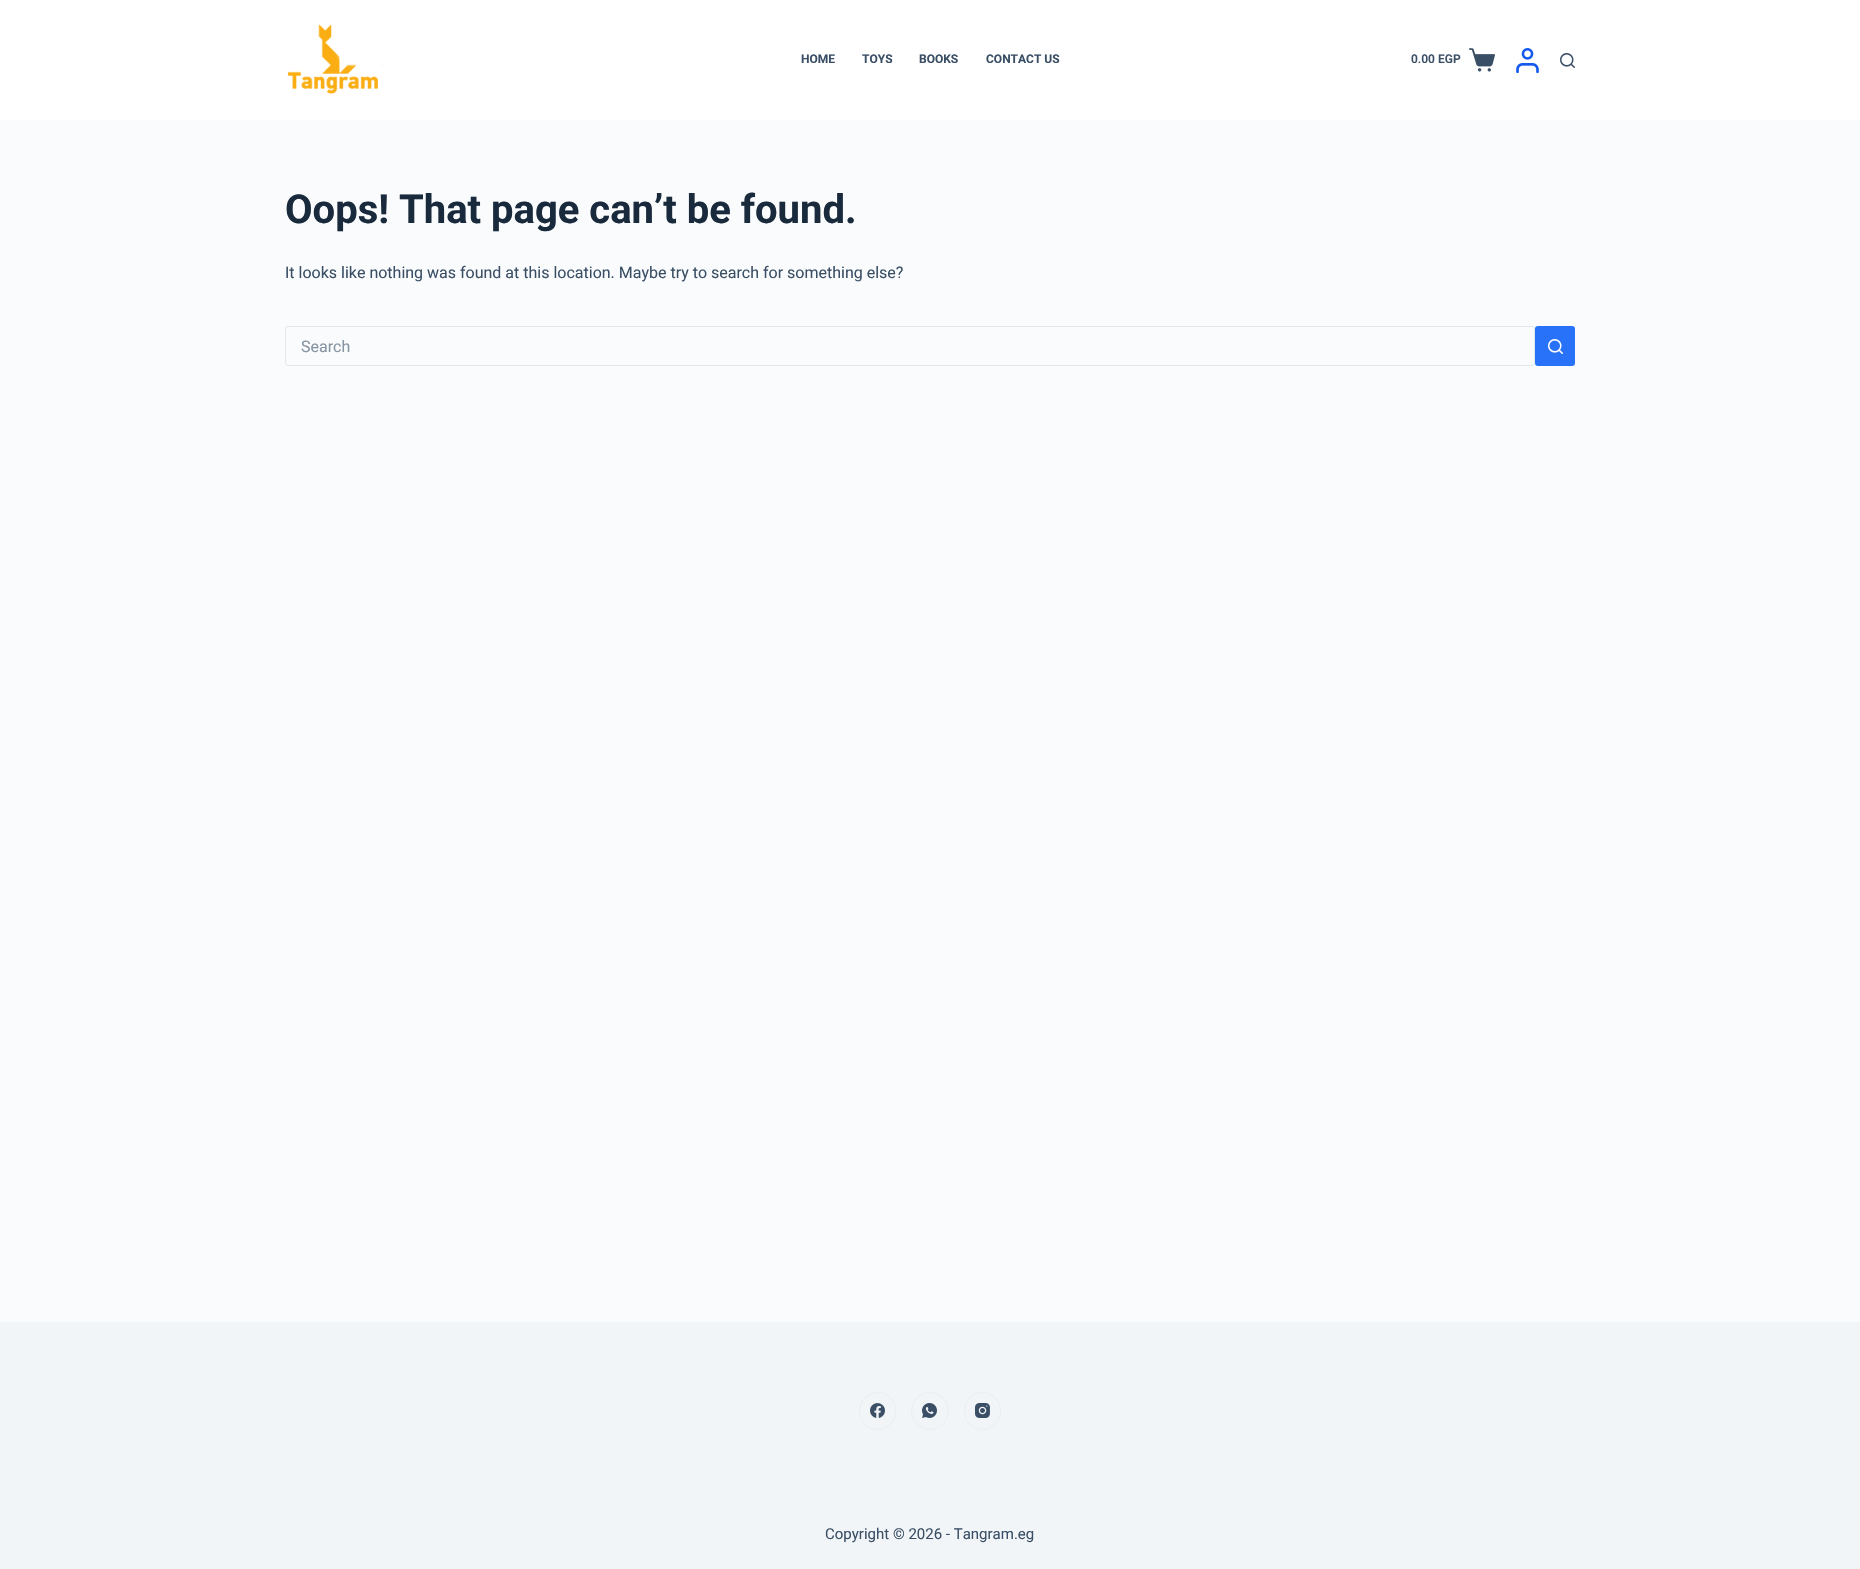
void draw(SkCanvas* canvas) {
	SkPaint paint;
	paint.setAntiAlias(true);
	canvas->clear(0xfffafbfc);
	paint.setColor(0xffffffff);
	canvas->drawRect(SkRect::MakeXYWH(0, 0, 1860, 120), paint);
	canvas->drawImageRect(SkImages::DeferredFromEncodedData(SkData::MakeFromFileName("img1.png")), SkRect::MakeXYWH(287, 24, 97, 70), SkSamplingOptions());
	SkFont f1(fontMgr->matchFamilyStyle("Roboto", SkFontStyle::Bold()), 12);
	f1.setSubpixel(true);
	paint.setColor(0xff3a4f66);
	canvas->drawString("HOME", 801, 63, f1, paint);
	canvas->drawString("TOYS", 862, 63, f1, paint);
	canvas->drawString("BOOKS", 919, 63, f1, paint);
	canvas->drawString("CONTACT US", 986, 63, f1, paint);
	SkFont f2(fontMgr->matchFamilyStyle("Roboto", SkFontStyle(600, SkFontStyle::kNormal_Width, SkFontStyle::kUpright_Slant)), 12);
	f2.setSubpixel(true);
	canvas->drawString("0.00 EGP", 1411, 63, f2, paint);
	canvas->drawImageRect(SkImages::DeferredFromEncodedData(SkData::MakeFromFileName("img2.png")), SkRect::MakeXYWH(1469, 48, 26, 24), SkSamplingOptions());
	canvas->drawImageRect(SkImages::DeferredFromEncodedData(SkData::MakeFromFileName("img3.png")), SkRect::MakeXYWH(1516, 48, 23, 25), SkSamplingOptions());
	canvas->drawImageRect(SkImages::DeferredFromEncodedData(SkData::MakeFromFileName("img4.png")), SkRect::MakeXYWH(1560, 53, 15, 15), SkSamplingOptions());
	SkFont f3(fontMgr->matchFamilyStyle("Roboto", SkFontStyle::Bold()), 40);
	f3.setSubpixel(true);
	paint.setColor(0xff192a3d);
	canvas->drawString("Oops! That page can’t be found.", 285, 223, f3, paint);
	SkFont f4(fontMgr->matchFamilyStyle("Roboto", SkFontStyle::Normal()), 16);
	f4.setSubpixel(true);
	paint.setColor(0xff3a4f66);
	canvas->drawString("It looks like nothing was found at this location. Maybe try to search for something else?", 285, 278, f4, paint);
	paint.setStroke(true);
	paint.setStrokeWidth(1);
	paint.setColor(0xffe1e8ed);
	canvas->drawRoundRect(SkRect::MakeXYWH(285.5, 326.5, 1249, 39), 2.5, 2.5, paint);
	paint.setStroke(false);
	paint.setColor(0xff8794a2);
	canvas->drawString("Search", 301, 352, f4, paint);
	paint.setColor(0xff2872fa);
	canvas->drawRoundRect(SkRect::MakeXYWH(1535, 326, 40, 40), 3, 3, paint);
	canvas->drawImageRect(SkImages::DeferredFromEncodedData(SkData::MakeFromFileName("img5.png")), SkRect::MakeXYWH(1548, 339, 15, 15), SkSamplingOptions());
	paint.setColor(0xfff2f5f7);
	canvas->drawRect(SkRect::MakeXYWH(0, 1322, 1860, 247), paint);
	paint.setStroke(true);
	paint.setColor(0xffebeef1);
	canvas->drawRoundRect(SkRect::MakeXYWH(859.5, 1392.5, 36, 37), 18, 18, paint);
	canvas->drawImageRect(SkImages::DeferredFromEncodedData(SkData::MakeFromFileName("img6.png")), SkRect::MakeXYWH(870, 1403, 15, 15), SkSamplingOptions());
	canvas->drawCircle(930, 1411, 18.5, paint);
	canvas->drawImageRect(SkImages::DeferredFromEncodedData(SkData::MakeFromFileName("img7.png")), SkRect::MakeXYWH(922, 1403, 15, 15), SkSamplingOptions());
	canvas->drawRoundRect(SkRect::MakeXYWH(964.5, 1392.5, 36, 37), 18, 18, paint);
	canvas->drawImageRect(SkImages::DeferredFromEncodedData(SkData::MakeFromFileName("img8.png")), SkRect::MakeXYWH(975, 1403, 15, 15), SkSamplingOptions());
	SkFont f5(fontMgr->matchFamilyStyle("Roboto", SkFontStyle::Normal()), 15);
	f5.setSubpixel(true);
	paint.setStroke(false);
	paint.setColor(0xff3a4f66);
	canvas->drawString("Copyright © 2026 - Tangram.eg", 825, 1539, f5, paint);
}
